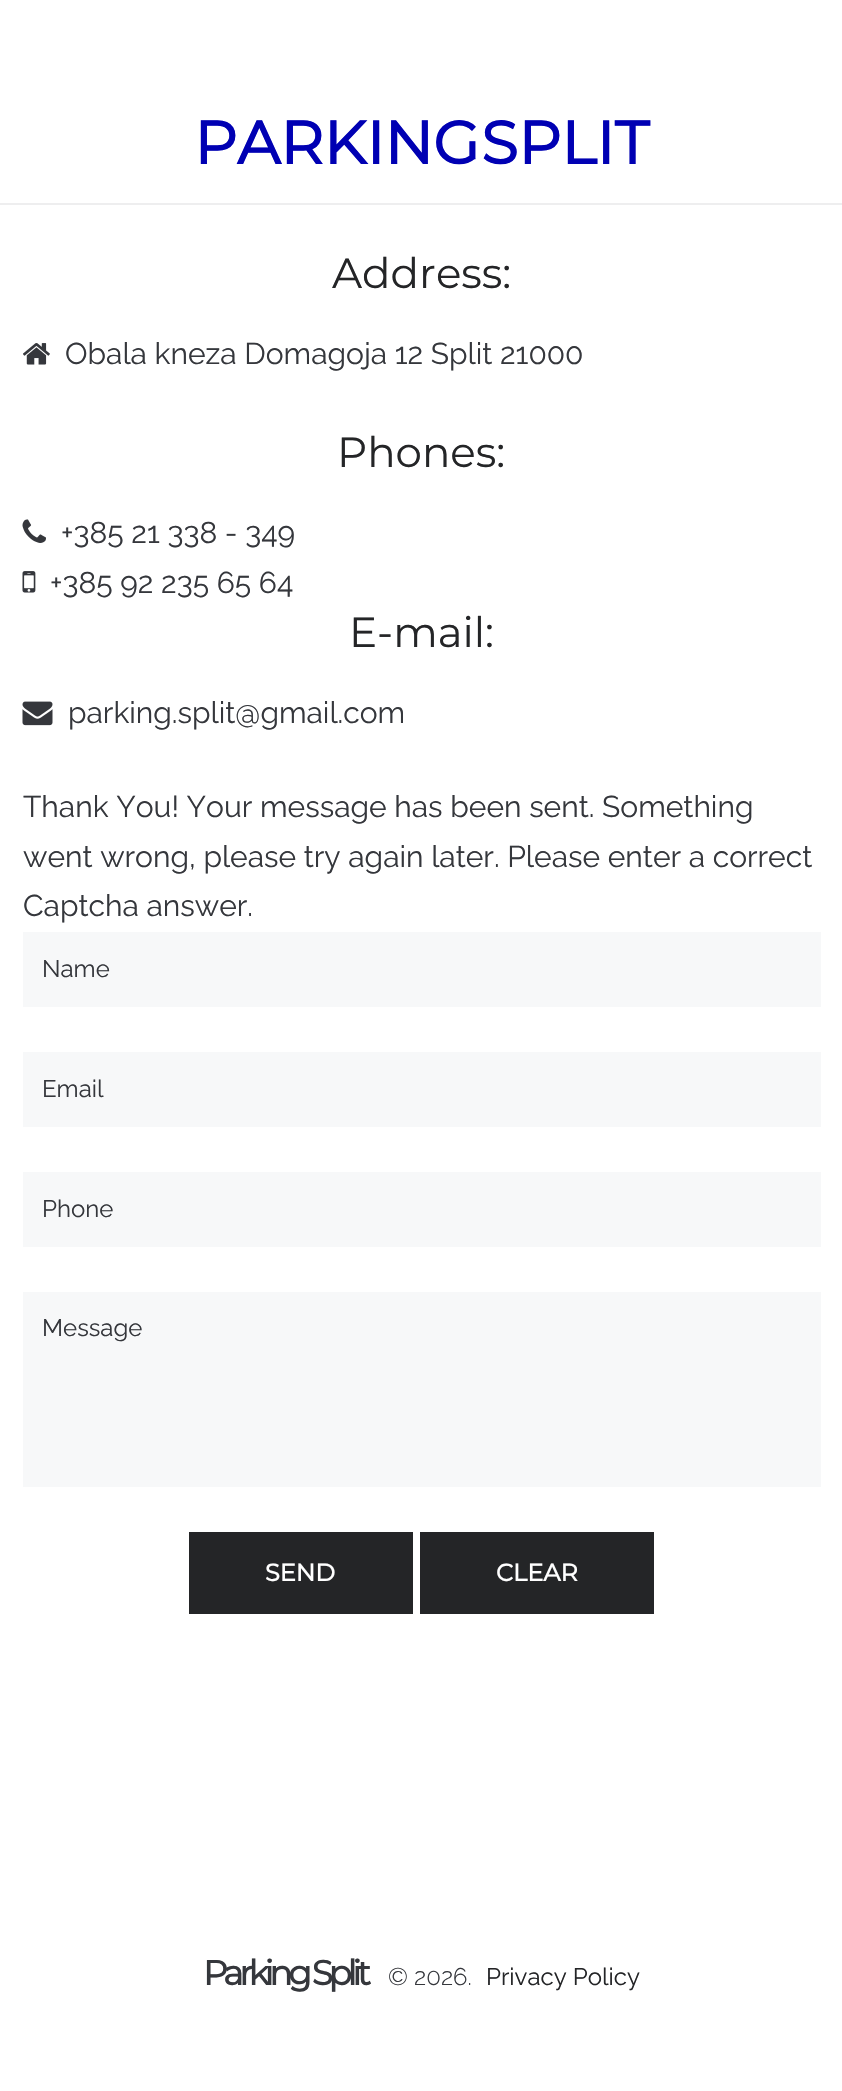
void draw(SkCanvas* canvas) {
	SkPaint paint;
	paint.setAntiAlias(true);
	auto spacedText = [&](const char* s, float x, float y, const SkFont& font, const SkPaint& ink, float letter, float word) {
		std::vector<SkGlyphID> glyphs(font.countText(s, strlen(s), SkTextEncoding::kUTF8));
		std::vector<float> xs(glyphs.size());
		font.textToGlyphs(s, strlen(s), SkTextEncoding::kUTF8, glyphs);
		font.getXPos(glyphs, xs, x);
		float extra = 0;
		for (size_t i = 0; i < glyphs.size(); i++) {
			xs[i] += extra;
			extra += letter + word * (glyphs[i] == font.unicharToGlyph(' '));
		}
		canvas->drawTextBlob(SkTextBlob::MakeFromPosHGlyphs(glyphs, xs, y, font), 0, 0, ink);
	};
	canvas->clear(0xffffffff);
	paint.setColor(0xffeeeeef);
	canvas->drawRect(SkRect::MakeXYWH(0, 203, 842, 2), paint);
	SkFont f1(fontMgr->matchFamilyStyle("Montserrat", SkFontStyle::Bold()), 60);
	f1.setSubpixel(true);
	paint.setColor(0xff0000b3);
	canvas->drawString("PARKING", 194, 164, f1, paint);
	canvas->drawString("SPLIT", 481, 164, f1, paint);
	SkFont f2(fontMgr->matchFamilyStyle("Montserrat", SkFontStyle(100, SkFontStyle::kNormal_Width, SkFontStyle::kUpright_Slant)), 42);
	f2.setSubpixel(true);
	paint.setColor(0xff242527);
	canvas->drawString("Address:", 332, 288, f2, paint);
	canvas->drawImageRect(SkImages::DeferredFromEncodedData(SkData::MakeFromFileName("img1.png")), SkRect::MakeXYWH(23, 343, 27, 22), SkSamplingOptions());
	SkFont f3(fontMgr->matchFamilyStyle("Raleway", SkFontStyle::Normal()), 30);
	f3.setSubpixel(true);
	paint.setColor(0xff35373c);
	canvas->drawString("Obala kneza Domagoja 12 Split 21000", 65, 364, f3, paint);
	paint.setColor(0xff242527);
	canvas->drawString("Phones:", 337, 467, f2, paint);
	canvas->drawImageRect(SkImages::DeferredFromEncodedData(SkData::MakeFromFileName("img2.png")), SkRect::MakeXYWH(22, 519, 24, 24), SkSamplingOptions());
	paint.setColor(0xff35373c);
	canvas->drawString("+385 21 338 - 349", 61, 543, f3, paint);
	canvas->drawImageRect(SkImages::DeferredFromEncodedData(SkData::MakeFromFileName("img3.png")), SkRect::MakeXYWH(22, 571, 14, 22), SkSamplingOptions());
	canvas->drawString("+385 92 235 65 64", 50, 593, f3, paint);
	paint.setColor(0xff242527);
	canvas->drawString("E-mail:", 349, 647, f2, paint);
	canvas->drawImageRect(SkImages::DeferredFromEncodedData(SkData::MakeFromFileName("img4.png")), SkRect::MakeXYWH(22, 701, 31, 25), SkSamplingOptions());
	paint.setColor(0xff35373c);
	canvas->drawString("parking.split@gmail.com", 68, 723, f3, paint);
	canvas->drawString("Thank You! Your message has been sent. Something", 23, 817, f3, paint);
	canvas->drawString("went wrong, please try again later. Please enter a correct", 23, 867, f3, paint);
	canvas->drawString("Captcha answer.", 23, 916, f3, paint);
	paint.setColor(0xfff7f8f9);
	canvas->drawRect(SkRect::MakeXYWH(23, 932, 798, 75), paint);
	SkFont f4(fontMgr->matchFamilyStyle("Raleway", SkFontStyle::Normal()), 24);
	f4.setSubpixel(true);
	paint.setColor(0xff35373c);
	canvas->drawString("Name", 42, 977, f4, paint);
	paint.setColor(0xfff7f8f9);
	canvas->drawRect(SkRect::MakeXYWH(23, 1052, 798, 75), paint);
	paint.setColor(0xff35373c);
	canvas->drawString("Email", 42, 1097, f4, paint);
	paint.setColor(0xfff7f8f9);
	canvas->drawRect(SkRect::MakeXYWH(23, 1172, 798, 75), paint);
	paint.setColor(0xff35373c);
	canvas->drawString("Phone", 42, 1217, f4, paint);
	paint.setColor(0xfff7f8f9);
	canvas->drawRect(SkRect::MakeXYWH(23, 1292, 798, 195), paint);
	paint.setColor(0xff35373c);
	canvas->drawString("Message", 42, 1336, f4, paint);
	paint.setColor(0xff242527);
	canvas->drawRect(SkRect::MakeXYWH(189, 1532, 224, 82), paint);
	SkFont f5(fontMgr->matchFamilyStyle("Montserrat", SkFontStyle::Bold()), 24);
	f5.setSubpixel(true);
	paint.setColor(0xffffffff);
	canvas->drawString("SEND", 265, 1581, f5, paint);
	paint.setColor(0xff242527);
	canvas->drawRect(SkRect::MakeXYWH(420, 1532, 234, 82), paint);
	paint.setColor(0xffffffff);
	canvas->drawString("CLEAR", 496, 1581, f5, paint);
	SkFont f6(fontMgr->matchFamilyStyle("Montserrat", SkFontStyle::Bold()), 34.5);
	f6.setSubpixel(true);
	paint.setColor(0xff35373c);
	spacedText("Parking Split", 203, 1985, f6, paint, -4.5, 0);
	SkFont f7(fontMgr->matchFamilyStyle("Raleway", SkFontStyle(300, SkFontStyle::kNormal_Width, SkFontStyle::kUpright_Slant)), 24);
	f7.setSubpixel(true);
	canvas->drawString("© 2026.", 388, 1985, f7, paint);
	paint.setColor(0xff242527);
	canvas->drawString("Privacy Policy", 486, 1985, f4, paint);
}
